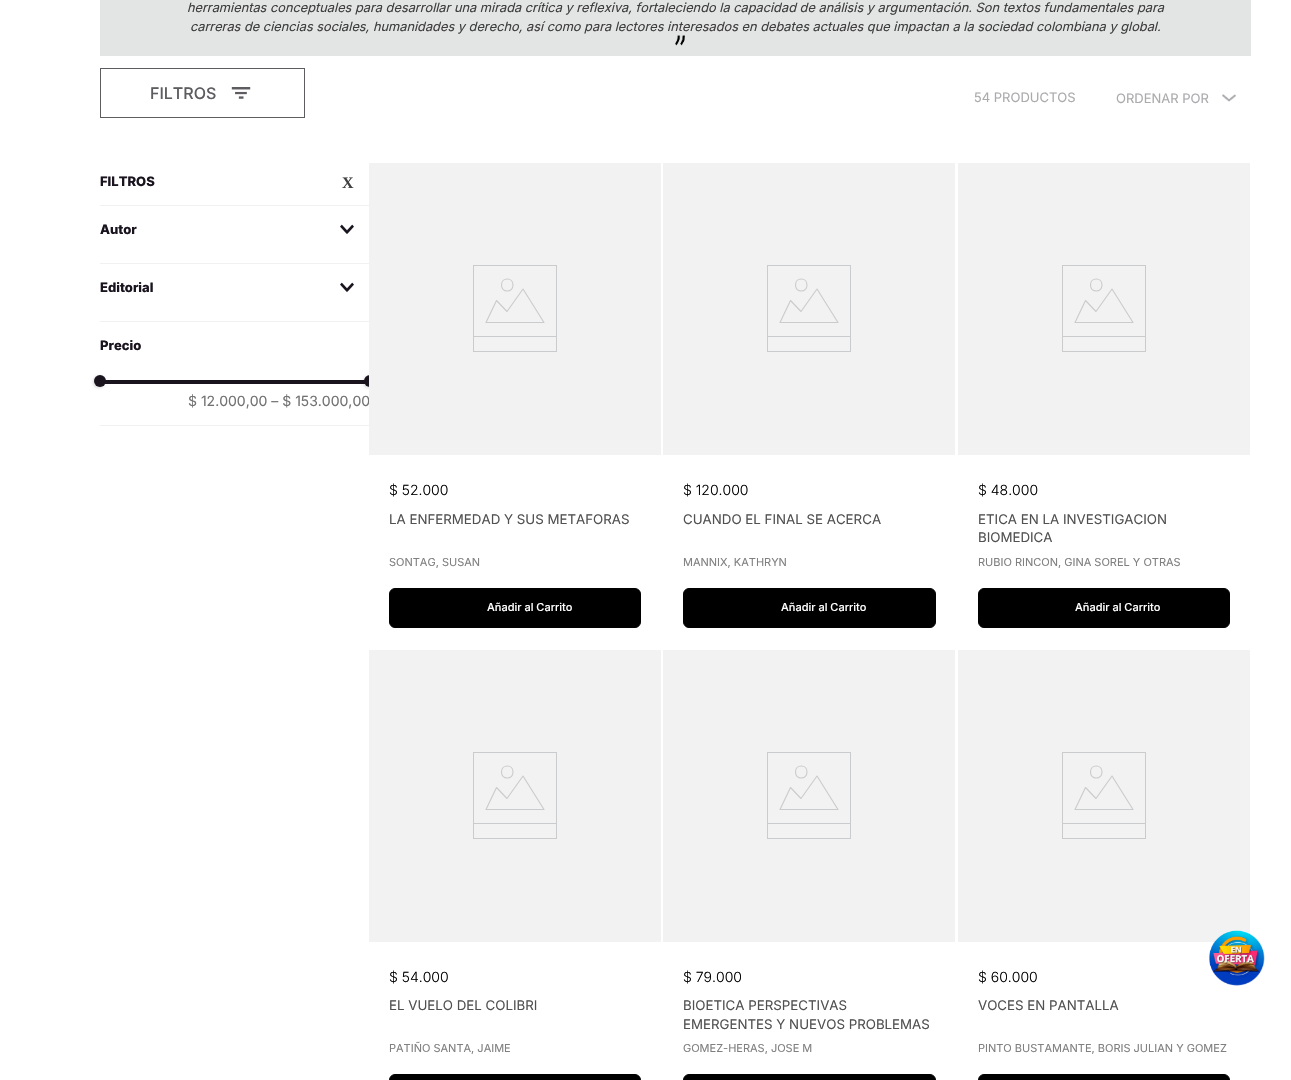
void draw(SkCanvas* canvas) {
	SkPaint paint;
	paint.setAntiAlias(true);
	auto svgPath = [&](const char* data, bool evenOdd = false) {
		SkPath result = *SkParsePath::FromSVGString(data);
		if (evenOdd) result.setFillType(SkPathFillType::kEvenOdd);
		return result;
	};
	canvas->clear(0xffffffff);
	paint.setColor(0xffe3e4e4);
	canvas->drawRect(SkRect::MakeXYWH(100, 0, 1151, 56), paint);
	SkFont f1(fontMgr->matchFamilyStyle("Inter", SkFontStyle::Italic()), 12.8);
	f1.setSubpixel(true);
	paint.setColor(0xff3f3f40);
	canvas->drawString("herramientas conceptuales para desarrollar una mirada crítica y reflexiva, fortaleciendo la capacidad de análisis y argumentación. Son textos fundamentales para", 187, 12, f1, paint);
	canvas->drawString("carreras de ciencias sociales, humanidades y derecho, así como para lectores interesados en debates actuales que impactan a la sociedad colombiana y global.", 190, 31, f1, paint);
	canvas->drawImageRect(SkImages::DeferredFromEncodedData(SkData::MakeFromFileName("img1.png")), SkRect::MakeXYWH(675, 35, 10, 11), SkSamplingOptions());
	paint.setStroke(true);
	paint.setStrokeWidth(1);
	paint.setColor(0xff5e5c60);
	canvas->drawRect(SkRect::MakeXYWH(100.5, 68.5, 204, 49), paint);
	SkFont f2(fontMgr->matchFamilyStyle("Inter", SkFontStyle(500, SkFontStyle::kNormal_Width, SkFontStyle::kUpright_Slant)), 16);
	f2.setSubpixel(true);
	paint.setStroke(false);
	canvas->drawString("FILTROS", 150, 99, f2, paint);
	canvas->drawImageRect(SkImages::DeferredFromEncodedData(SkData::MakeFromFileName("img2.png")), SkRect::MakeXYWH(231, 87, 20, 12), SkSamplingOptions());
	paint.setColor(0xfff1f1f1);
	canvas->drawRect(SkRect::MakeXYWH(100, 205, 270, 1), paint);
	SkFont f3(fontMgr->matchFamilyStyle("Inter", SkFontStyle(800, SkFontStyle::kNormal_Width, SkFontStyle::kUpright_Slant)), 13);
	f3.setSubpixel(true);
	paint.setColor(0xff1a141f);
	canvas->drawString("FILTROS", 100, 186, f3, paint);
	paint.setColor(0xfff1f1f1);
	canvas->drawRect(SkRect::MakeXYWH(100, 263, 270, 1), paint);
	paint.setColor(0xff1a141f);
	canvas->drawString("Autor", 100, 234, f3, paint);
	canvas->drawImageRect(SkImages::DeferredFromEncodedData(SkData::MakeFromFileName("img3.png")), SkRect::MakeXYWH(340, 224, 14, 10), SkSamplingOptions());
	paint.setColor(0xfff1f1f1);
	canvas->drawRect(SkRect::MakeXYWH(100, 321, 270, 1), paint);
	paint.setColor(0xff1a141f);
	canvas->drawString("Editorial", 100, 292, f3, paint);
	canvas->drawImageRect(SkImages::DeferredFromEncodedData(SkData::MakeFromFileName("img3.png")), SkRect::MakeXYWH(340, 282, 14, 10), SkSamplingOptions());
	paint.setColor(0xfff1f1f1);
	canvas->drawRect(SkRect::MakeXYWH(100, 425, 270, 1), paint);
	paint.setColor(0xff1a141f);
	canvas->drawString("Precio", 100, 350, f3, paint);
	canvas->drawRect(SkRect::MakeXYWH(100, 380, 270, 4), paint);
	paint.setColor(0x26000000);
	paint.setMaskFilter(SkMaskFilter::MakeBlur(kNormal_SkBlurStyle, 1.5));
	canvas->drawRoundRect(SkRect::MakeXYWH(93, 376, 12, 12), 6, 6, paint);
	paint.setMaskFilter(nullptr);
	paint.setColor(0xff1a141f);
	canvas->drawCircle(100, 381, 6, paint);
	paint.setColor(0x26000000);
	paint.setMaskFilter(SkMaskFilter::MakeBlur(kNormal_SkBlurStyle, 1.5));
	canvas->drawRoundRect(SkRect::MakeXYWH(363, 376, 12, 12), 6, 6, paint);
	paint.setMaskFilter(nullptr);
	paint.setColor(0xff1a141f);
	canvas->drawCircle(370, 381, 6, paint);
	SkFont f4(fontMgr->matchFamilyStyle("Inter", SkFontStyle::Normal()), 14);
	f4.setSubpixel(true);
	paint.setColor(0xff727273);
	canvas->drawString("$ 12.000,00 – $ 153.000,00", 188, 406, f4, paint);
	SkFont f5(fontMgr->matchFamilyStyle("Liberation Serif", SkFontStyle::Bold()), 16);
	f5.setSubpixel(true);
	paint.setColor(0xff3f3f40);
	canvas->drawString("X", 342, 188, f5, paint);
	paint.setColor(0xfff2f2f2);
	canvas->drawRect(SkRect::MakeXYWH(369, 163, 292, 292), paint);
	paint.setStroke(true);
	paint.setColor(0xffcacbcc);
	canvas->drawRect(SkRect::MakeXYWH(473.5, 265.5, 83, 86), paint);
	paint.setStrokeWidth(1.1);
	paint.setStrokeCap(SkPaint::kRound_Cap);
	paint.setStrokeJoin(SkPaint::kRound_Join);
	canvas->drawPath(svgPath("M486 322.5L496.5 300.5L507 311.5L523 289L544 322.5Z"), paint);
	paint.setStrokeCap(SkPaint::kButt_Cap);
	paint.setStrokeJoin(SkPaint::kMiter_Join);
	canvas->drawPath(svgPath("M513 285C513 293 501.5 293 501.5 285C501.5 277 513 277 513 285Z"), paint);
	paint.setStroke(false);
	canvas->drawRect(SkRect::MakeXYWH(474, 336, 83, 1), paint);
	SkFont f6(fontMgr->matchFamilyStyle("Inter", SkFontStyle(300, SkFontStyle::kNormal_Width, SkFontStyle::kUpright_Slant)), 14);
	f6.setSubpixel(true);
	paint.setColor(0xff000000);
	canvas->drawString("$ 52.000", 389, 495, f6, paint);
	SkFont f7(fontMgr->matchFamilyStyle("Inter", SkFontStyle::Normal()), 13.3);
	f7.setSubpixel(true);
	paint.setColor(0xff515151);
	canvas->drawString("LA ENFERMEDAD Y SUS METAFORAS", 389, 524, f7, paint);
	SkFont f8(fontMgr->matchFamilyStyle("Inter", SkFontStyle::Normal()), 11);
	f8.setSubpixel(true);
	paint.setColor(0xff808080);
	canvas->drawString("SONTAG, SUSAN", 389, 566, f8, paint);
	paint.setColor(0xff000000);
	canvas->drawRoundRect(SkRect::MakeXYWH(389.5, 588.5, 251, 39), 5.5, 5.5, paint);
	paint.setStroke(true);
	paint.setStrokeWidth(1);
	canvas->drawRoundRect(SkRect::MakeXYWH(389.5, 588.5, 251, 39), 5.5, 5.5, paint);
	SkFont f9(fontMgr->matchFamilyStyle("Inter", SkFontStyle(500, SkFontStyle::kNormal_Width, SkFontStyle::kUpright_Slant)), 11);
	f9.setSubpixel(true);
	paint.setStroke(false);
	paint.setColor(0xffffffff);
	canvas->drawString("Añadir al Carrito", 487, 611, f9, paint);
	paint.setColor(0xfff2f2f2);
	canvas->drawRect(SkRect::MakeXYWH(663, 163, 292, 292), paint);
	paint.setStroke(true);
	paint.setColor(0xffcacbcc);
	canvas->drawRect(SkRect::MakeXYWH(767.5, 265.5, 83, 86), paint);
	paint.setStrokeWidth(1.1);
	paint.setStrokeCap(SkPaint::kRound_Cap);
	paint.setStrokeJoin(SkPaint::kRound_Join);
	canvas->drawPath(svgPath("M780 322.5L790.5 300.5L801 311.5L817 289L838 322.5Z"), paint);
	paint.setStrokeCap(SkPaint::kButt_Cap);
	paint.setStrokeJoin(SkPaint::kMiter_Join);
	canvas->drawPath(svgPath("M807 285C807 293 795.5 293 795.5 285C795.5 277 807 277 807 285Z"), paint);
	paint.setStroke(false);
	canvas->drawRect(SkRect::MakeXYWH(768, 336, 83, 1), paint);
	paint.setColor(0xff000000);
	canvas->drawString("$ 120.000", 683, 495, f6, paint);
	paint.setColor(0xff515151);
	canvas->drawString("CUANDO EL FINAL SE ACERCA", 683, 524, f7, paint);
	paint.setColor(0xff808080);
	canvas->drawString("MANNIX, KATHRYN", 683, 566, f8, paint);
	paint.setColor(0xff000000);
	canvas->drawRoundRect(SkRect::MakeXYWH(683.5, 588.5, 252, 39), 5.5, 5.5, paint);
	paint.setStroke(true);
	paint.setStrokeWidth(1);
	canvas->drawRoundRect(SkRect::MakeXYWH(683.5, 588.5, 252, 39), 5.5, 5.5, paint);
	paint.setStroke(false);
	paint.setColor(0xffffffff);
	canvas->drawString("Añadir al Carrito", 781, 611, f9, paint);
	paint.setColor(0xfff2f2f2);
	canvas->drawRect(SkRect::MakeXYWH(958, 163, 292, 292), paint);
	paint.setStroke(true);
	paint.setColor(0xffcacbcc);
	canvas->drawRect(SkRect::MakeXYWH(1062.5, 265.5, 83, 86), paint);
	paint.setStrokeWidth(1.1);
	paint.setStrokeCap(SkPaint::kRound_Cap);
	paint.setStrokeJoin(SkPaint::kRound_Join);
	canvas->drawPath(svgPath("M1075 322.5L1085.5 300.5L1096 311.5L1112 289L1133 322.5Z"), paint);
	paint.setStrokeCap(SkPaint::kButt_Cap);
	paint.setStrokeJoin(SkPaint::kMiter_Join);
	canvas->drawPath(svgPath("M1102 285C1102 293 1090.5 293 1090.5 285C1090.5 277 1102 277 1102 285Z"), paint);
	paint.setStroke(false);
	canvas->drawRect(SkRect::MakeXYWH(1063, 336, 83, 1), paint);
	paint.setColor(0xff000000);
	canvas->drawString("$ 48.000", 978, 495, f6, paint);
	paint.setColor(0xff515151);
	canvas->drawString("ETICA EN LA INVESTIGACION", 978, 524, f7, paint);
	canvas->drawString("BIOMEDICA", 978, 542, f7, paint);
	paint.setColor(0xff808080);
	canvas->drawString("RUBIO RINCON, GINA SOREL Y OTRAS", 978, 566, f8, paint);
	paint.setColor(0xff000000);
	canvas->drawRoundRect(SkRect::MakeXYWH(978.5, 588.5, 251, 39), 5.5, 5.5, paint);
	paint.setStroke(true);
	paint.setStrokeWidth(1);
	canvas->drawRoundRect(SkRect::MakeXYWH(978.5, 588.5, 251, 39), 5.5, 5.5, paint);
	paint.setStroke(false);
	paint.setColor(0xffffffff);
	canvas->drawString("Añadir al Carrito", 1075, 611, f9, paint);
	paint.setColor(0xfff2f2f2);
	canvas->drawRect(SkRect::MakeXYWH(369, 650, 292, 292), paint);
	paint.setStroke(true);
	paint.setColor(0xffcacbcc);
	canvas->drawRect(SkRect::MakeXYWH(473.5, 752.5, 83, 86), paint);
	paint.setStrokeWidth(1.1);
	paint.setStrokeCap(SkPaint::kRound_Cap);
	paint.setStrokeJoin(SkPaint::kRound_Join);
	canvas->drawPath(svgPath("M486 809.5L496.5 787.5L507 798.5L523 776L544 809.5Z"), paint);
	paint.setStrokeCap(SkPaint::kButt_Cap);
	paint.setStrokeJoin(SkPaint::kMiter_Join);
	canvas->drawPath(svgPath("M513 772C513 780 501.5 780 501.5 772C501.5 764 513 764 513 772Z"), paint);
	paint.setStroke(false);
	canvas->drawRect(SkRect::MakeXYWH(474, 823, 83, 1), paint);
	paint.setColor(0xff000000);
	canvas->drawString("$ 54.000", 389, 982, f6, paint);
	paint.setColor(0xff515151);
	canvas->drawString("EL VUELO DEL COLIBRI", 389, 1010, f7, paint);
	paint.setColor(0xff808080);
	canvas->drawString("PATIÑO SANTA, JAIME", 389, 1052, f8, paint);
	paint.setColor(0xff000000);
	canvas->drawRoundRect(SkRect::MakeXYWH(389.5, 1074.5, 251, 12), 5.5, 5.5, paint);
	paint.setStroke(true);
	paint.setStrokeWidth(1);
	canvas->drawRoundRect(SkRect::MakeXYWH(389.5, 1074.5, 251, 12), 5.5, 5.5, paint);
	paint.setStroke(false);
	paint.setColor(0xfff2f2f2);
	canvas->drawRect(SkRect::MakeXYWH(663, 650, 292, 292), paint);
	paint.setStroke(true);
	paint.setColor(0xffcacbcc);
	canvas->drawRect(SkRect::MakeXYWH(767.5, 752.5, 83, 86), paint);
	paint.setStrokeWidth(1.1);
	paint.setStrokeCap(SkPaint::kRound_Cap);
	paint.setStrokeJoin(SkPaint::kRound_Join);
	canvas->drawPath(svgPath("M780 809.5L790.5 787.5L801 798.5L817 776L838 809.5Z"), paint);
	paint.setStrokeCap(SkPaint::kButt_Cap);
	paint.setStrokeJoin(SkPaint::kMiter_Join);
	canvas->drawPath(svgPath("M807 772C807 780 795.5 780 795.5 772C795.5 764 807 764 807 772Z"), paint);
	paint.setStroke(false);
	canvas->drawRect(SkRect::MakeXYWH(768, 823, 83, 1), paint);
	paint.setColor(0xff000000);
	canvas->drawString("$ 79.000", 683, 982, f6, paint);
	paint.setColor(0xff515151);
	canvas->drawString("BIOETICA PERSPECTIVAS", 683, 1010, f7, paint);
	canvas->drawString("EMERGENTES Y NUEVOS PROBLEMAS", 683, 1029, f7, paint);
	paint.setColor(0xff808080);
	canvas->drawString("GOMEZ-HERAS, JOSE M", 683, 1052, f8, paint);
	paint.setColor(0xff000000);
	canvas->drawRoundRect(SkRect::MakeXYWH(683.5, 1074.5, 252, 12), 5.5, 5.5, paint);
	paint.setStroke(true);
	paint.setStrokeWidth(1);
	canvas->drawRoundRect(SkRect::MakeXYWH(683.5, 1074.5, 252, 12), 5.5, 5.5, paint);
	paint.setStroke(false);
	paint.setColor(0xfff2f2f2);
	canvas->drawRect(SkRect::MakeXYWH(958, 650, 292, 292), paint);
	paint.setStroke(true);
	paint.setColor(0xffcacbcc);
	canvas->drawRect(SkRect::MakeXYWH(1062.5, 752.5, 83, 86), paint);
	paint.setStrokeWidth(1.1);
	paint.setStrokeCap(SkPaint::kRound_Cap);
	paint.setStrokeJoin(SkPaint::kRound_Join);
	canvas->drawPath(svgPath("M1075 809.5L1085.5 787.5L1096 798.5L1112 776L1133 809.5Z"), paint);
	paint.setStrokeCap(SkPaint::kButt_Cap);
	paint.setStrokeJoin(SkPaint::kMiter_Join);
	canvas->drawPath(svgPath("M1102 772C1102 780 1090.5 780 1090.5 772C1090.5 764 1102 764 1102 772Z"), paint);
	paint.setStroke(false);
	canvas->drawRect(SkRect::MakeXYWH(1063, 823, 83, 1), paint);
	paint.setColor(0xff000000);
	canvas->drawString("$ 60.000", 978, 982, f6, paint);
	paint.setColor(0xff515151);
	canvas->drawString("VOCES EN PANTALLA", 978, 1010, f7, paint);
	paint.setColor(0xff808080);
	canvas->drawString("PINTO BUSTAMANTE, BORIS JULIAN Y GOMEZ", 978, 1052, f8, paint);
	paint.setColor(0xff000000);
	canvas->drawRoundRect(SkRect::MakeXYWH(978.5, 1074.5, 251, 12), 5.5, 5.5, paint);
	paint.setStroke(true);
	paint.setStrokeWidth(1);
	canvas->drawRoundRect(SkRect::MakeXYWH(978.5, 1074.5, 251, 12), 5.5, 5.5, paint);
	SkFont f10(fontMgr->matchFamilyStyle("Inter", SkFontStyle::Normal()), 13);
	f10.setSubpixel(true);
	paint.setStroke(false);
	paint.setColor(0xffabaaad);
	canvas->drawString("54 PRODUCTOS", 974, 102, f10, paint);
	canvas->drawString("ORDENAR POR", 1116, 103, f10, paint);
	canvas->drawImageRect(SkImages::DeferredFromEncodedData(SkData::MakeFromFileName("img4.png")), SkRect::MakeXYWH(1222, 94, 14, 8), SkSamplingOptions());
	canvas->drawImageRect(SkImages::DeferredFromEncodedData(SkData::MakeFromFileName("img5.png")), SkRect::MakeXYWH(1209, 930, 56, 56), SkSamplingOptions());
}
